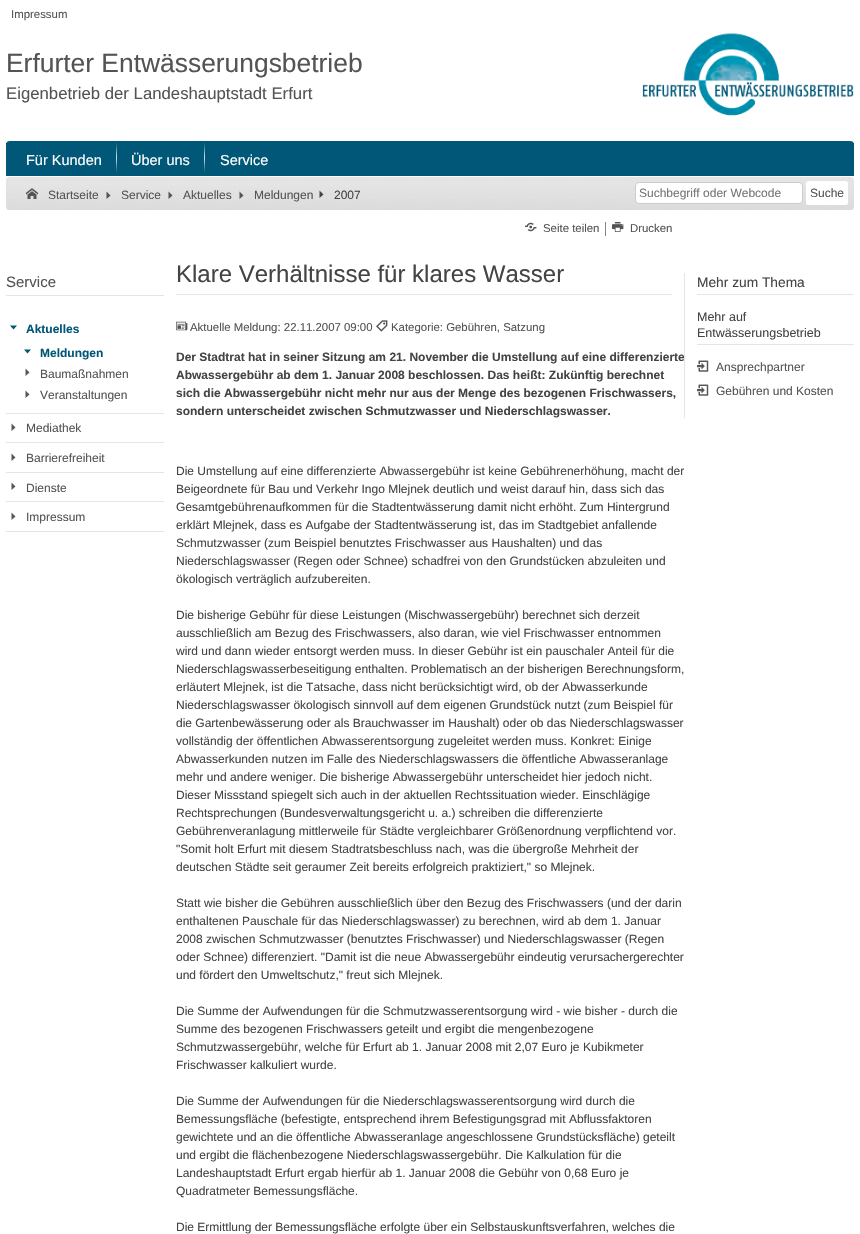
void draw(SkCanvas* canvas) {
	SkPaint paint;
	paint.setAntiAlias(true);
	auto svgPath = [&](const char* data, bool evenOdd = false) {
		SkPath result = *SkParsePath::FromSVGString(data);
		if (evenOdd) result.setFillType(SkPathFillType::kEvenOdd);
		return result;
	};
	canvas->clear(0xffffffff);
	SkFont f1(fontMgr->matchFamilyStyle("Liberation Sans", SkFontStyle::Normal()), 11.4);
	f1.setSubpixel(true);
	paint.setColor(0xff545454);
	canvas->drawString("Impressum", 11, 18, f1, paint);
	SkFont f2(fontMgr->matchFamilyStyle("Liberation Sans", SkFontStyle::Normal()), 26.4);
	f2.setSubpixel(true);
	canvas->drawString("Erfurter Entwässerungsbetrieb", 6, 72, f2, paint);
	SkFont f3(fontMgr->matchFamilyStyle("Liberation Sans", SkFontStyle::Normal()), 16.75);
	f3.setSubpixel(true);
	canvas->drawString("Eigenbetrieb der Landeshauptstadt Erfurt", 6, 99, f3, paint);
	canvas->drawImageRect(SkImages::DeferredFromEncodedData(SkData::MakeFromFileName("img1.png")), SkRect::MakeXYWH(642, 33, 212, 83), SkSamplingOptions());
	paint.setColor(0xff005777);
	canvas->drawRoundRect(SkRect::MakeXYWH(6, 141, 848, 35), 4, 4, paint);
	canvas->drawRect(SkRect::MakeXYWH(6, 143, 848, 33), paint);
	SkFont f4(fontMgr->matchFamilyStyle("Liberation Sans", SkFontStyle::Normal()), 14.5);
	f4.setSubpixel(true);
	paint.setColor(0xffffffff);
	canvas->drawString("Für Kunden", 26, 165, f4, paint);
	canvas->drawImageRect(SkImages::DeferredFromEncodedData(SkData::MakeFromFileName("img2.png")), SkRect::MakeXYWH(116, 142, 1, 31), SkSamplingOptions());
	canvas->drawString("Über uns", 131, 165, f4, paint);
	canvas->drawImageRect(SkImages::DeferredFromEncodedData(SkData::MakeFromFileName("img2.png")), SkRect::MakeXYWH(204, 142, 1, 31), SkSamplingOptions());
	canvas->drawString("Service", 220, 165, f4, paint);
	canvas->drawImageRect(SkImages::DeferredFromEncodedData(SkData::MakeFromFileName("img3.png")), SkRect::MakeXYWH(6, 177, 848, 33), SkSamplingOptions());
	canvas->drawImageRect(SkImages::DeferredFromEncodedData(SkData::MakeFromFileName("img4.png")), SkRect::MakeXYWH(26, 188, 12, 11), SkSamplingOptions());
	SkFont f5(fontMgr->matchFamilyStyle("Liberation Sans", SkFontStyle::Normal()), 12);
	f5.setSubpixel(true);
	paint.setColor(0xff545454);
	canvas->drawString("Startseite", 48, 199, f5, paint);
	canvas->drawPath(svgPath("M106.5 199V191.5L110.5 195.5Z"), paint);
	canvas->drawString("Service", 121, 199, f5, paint);
	canvas->drawPath(svgPath("M168.5 199V191.5L172.5 195.5Z"), paint);
	canvas->drawString("Aktuelles", 183, 199, f5, paint);
	canvas->drawPath(svgPath("M239.5 199V191.5L243.5 195.5Z"), paint);
	canvas->drawString("Meldungen", 254, 199, f5, paint);
	paint.setColor(0xff444444);
	canvas->drawPath(svgPath("M319.5 198V190.5L323.5 194.5Z"), paint);
	canvas->drawString("2007", 334, 199, f5, paint);
	paint.setColor(0xffffffff);
	canvas->drawRoundRect(SkRect::MakeXYWH(635.5, 182.5, 167, 21), 3.5, 3.5, paint);
	paint.setStroke(true);
	paint.setStrokeWidth(1);
	paint.setColor(0xffcccccc);
	canvas->drawRoundRect(SkRect::MakeXYWH(635.5, 182.5, 167, 21), 3.5, 3.5, paint);
	paint.setStroke(false);
	paint.setColor(0xff757575);
	canvas->drawString("Suchbegriff oder Webcode", 639, 197, f5, paint);
	paint.setColor(0xffffffff);
	canvas->drawRoundRect(SkRect::MakeXYWH(806, 181, 42, 24), 2.5, 2.5, paint);
	paint.setColor(0xff545454);
	canvas->drawString("Suche", 810, 197, f5, paint);
	paint.setColor(0xffe5e5e5);
	canvas->drawRect(SkRect::MakeXYWH(6, 295, 158, 1), paint);
	SkFont f6(fontMgr->matchFamilyStyle("Liberation Sans", SkFontStyle::Normal()), 15);
	f6.setSubpixel(true);
	paint.setColor(0xff545454);
	canvas->drawString("Service", 6, 287, f6, paint);
	paint.setColor(0xffe5e5e5);
	canvas->drawRect(SkRect::MakeXYWH(6, 413, 158, 1), paint);
	paint.setColor(0xff005777);
	canvas->drawPath(svgPath("M10 325.5H17L13.5 329.5ZM24 349.5H31L27.5 353.5Z"), paint);
	SkFont f7(fontMgr->matchFamilyStyle("Liberation Sans", SkFontStyle::Bold()), 12);
	f7.setSubpixel(true);
	canvas->drawString("Aktuelles", 26, 333, f7, paint);
	canvas->drawString("Meldungen", 40, 357, f7, paint);
	paint.setColor(0xff545454);
	canvas->drawString("Mediathek", 26, 432, f5, paint);
	paint.setColor(0xff575757);
	canvas->drawPath(svgPath("M25.5 376V368.5L29.5 372.5ZM25.5 398V390.5L29.5 394.5ZM11.5 431V423.5L15.5 427.5Z"), paint);
	paint.setColor(0xff545454);
	canvas->drawString("Baumaßnahmen", 40, 378, f5, paint);
	canvas->drawString("Veranstaltungen", 40, 399, f5, paint);
	paint.setColor(0xffe5e5e5);
	canvas->drawRect(SkRect::MakeXYWH(6, 442, 158, 1), paint);
	canvas->drawRect(SkRect::MakeXYWH(6, 472, 158, 1), paint);
	paint.setColor(0xff575757);
	canvas->drawPath(svgPath("M11.5 461V453.5L15.5 457.5ZM11.5 490V482.5L15.5 486.5Z"), paint);
	paint.setColor(0xff545454);
	canvas->drawString("Barrierefreiheit", 26, 462, f5, paint);
	paint.setColor(0xffe5e5e5);
	canvas->drawRect(SkRect::MakeXYWH(6, 501, 158, 1), paint);
	paint.setColor(0xff545454);
	canvas->drawString("Dienste", 26, 492, f5, paint);
	paint.setColor(0xffe5e5e5);
	canvas->drawRect(SkRect::MakeXYWH(6, 531, 158, 1), paint);
	paint.setColor(0xff575757);
	canvas->drawPath(svgPath("M11.5 520V512.5L15.5 516.5Z"), paint);
	paint.setColor(0xff545454);
	canvas->drawString("Impressum", 26, 521, f5, paint);
	canvas->drawImageRect(SkImages::DeferredFromEncodedData(SkData::MakeFromFileName("img5.png")), SkRect::MakeXYWH(525, 222, 12, 10), SkSamplingOptions());
	canvas->drawString("Seite teilen", 543, 232, f1, paint);
	paint.setColor(0xff848484);
	canvas->drawRect(SkRect::MakeXYWH(605, 222, 1, 14), paint);
	canvas->drawImageRect(SkImages::DeferredFromEncodedData(SkData::MakeFromFileName("img6.png")), SkRect::MakeXYWH(612, 222, 12, 10), SkSamplingOptions());
	paint.setColor(0xff545454);
	canvas->drawString("Drucken", 630, 232, f1, paint);
	paint.setColor(0xffe5e5e5);
	canvas->drawRect(SkRect::MakeXYWH(176, 294, 496, 1), paint);
	SkFont f8(fontMgr->matchFamilyStyle("Liberation Sans", SkFontStyle::Normal()), 24);
	f8.setSubpixel(true);
	paint.setColor(0xff444444);
	canvas->drawString("Klare Verhältnisse für klares Wasser", 176, 282, f8, paint);
	canvas->drawImageRect(SkImages::DeferredFromEncodedData(SkData::MakeFromFileName("img7.png")), SkRect::MakeXYWH(176, 321, 12, 10), SkSamplingOptions());
	paint.setColor(0xff545454);
	canvas->drawString("Aktuelle Meldung: 22.11.2007 09:00", 190, 331, f1, paint);
	canvas->drawImageRect(SkImages::DeferredFromEncodedData(SkData::MakeFromFileName("img8.png")), SkRect::MakeXYWH(376, 320, 12, 12), SkSamplingOptions());
	canvas->drawString("Kategorie: Gebühren, Satzung", 391, 331, f1, paint);
	paint.setColor(0xff444444);
	canvas->drawString("Der Stadtrat hat in seiner Sitzung am 21. November die Umstellung auf eine differenzierte", 176, 361, f7, paint);
	canvas->drawString("Abwassergebühr ab dem 1. Januar 2008 beschlossen. Das heißt: Zukünftig berechnet", 176, 379, f7, paint);
	canvas->drawString("sich die Abwassergebühr nicht mehr nur aus der Menge des bezogenen Frischwassers,", 176, 397, f7, paint);
	canvas->drawString("sondern unterscheidet zwischen Schmutzwasser und Niederschlagswasser.", 176, 415, f7, paint);
	canvas->drawString("Die Umstellung auf eine differenzierte Abwassergebühr ist keine Gebührenerhöhung, macht der", 176, 475, f5, paint);
	canvas->drawString("Beigeordnete für Bau und Verkehr Ingo Mlejnek deutlich und weist darauf hin, dass sich das", 176, 493, f5, paint);
	canvas->drawString("Gesamtgebührenaufkommen für die Stadtentwässerung damit nicht erhöht. Zum Hintergrund", 176, 511, f5, paint);
	canvas->drawString("erklärt Mlejnek, dass es Aufgabe der Stadtentwässerung ist, das im Stadtgebiet anfallende", 176, 529, f5, paint);
	canvas->drawString("Schmutzwasser (zum Beispiel benutztes Frischwasser aus Haushalten) und das", 176, 547, f5, paint);
	canvas->drawString("Niederschlagswasser (Regen oder Schnee) schadfrei von den Grundstücken abzuleiten und", 176, 565, f5, paint);
	canvas->drawString("ökologisch verträglich aufzubereiten.", 176, 583, f5, paint);
	canvas->drawString("Die bisherige Gebühr für diese Leistungen (Mischwassergebühr) berechnet sich derzeit", 176, 619, f5, paint);
	canvas->drawString("ausschließlich am Bezug des Frischwassers, also daran, wie viel Frischwasser entnommen", 176, 637, f5, paint);
	canvas->drawString("wird und dann wieder entsorgt werden muss. In dieser Gebühr ist ein pauschaler Anteil für die", 176, 655, f5, paint);
	canvas->drawString("Niederschlagswasserbeseitigung enthalten. Problematisch an der bisherigen Berechnungsform,", 176, 673, f5, paint);
	canvas->drawString("erläutert Mlejnek, ist die Tatsache, dass nicht berücksichtigt wird, ob der Abwasserkunde", 176, 691, f5, paint);
	canvas->drawString("Niederschlagswasser ökologisch sinnvoll auf dem eigenen Grundstück nutzt (zum Beispiel für", 176, 709, f5, paint);
	canvas->drawString("die Gartenbewässerung oder als Brauchwasser im Haushalt) oder ob das Niederschlagswasser", 176, 727, f5, paint);
	canvas->drawString("vollständig der öffentlichen Abwasserentsorgung zugeleitet werden muss. Konkret: Einige", 176, 745, f5, paint);
	canvas->drawString("Abwasserkunden nutzen im Falle des Niederschlagswassers die öffentliche Abwasseranlage", 176, 763, f5, paint);
	canvas->drawString("mehr und andere weniger. Die bisherige Abwassergebühr unterscheidet hier jedoch nicht.", 176, 781, f5, paint);
	canvas->drawString("Dieser Missstand spiegelt sich auch in der aktuellen Rechtssituation wieder. Einschlägige", 176, 799, f5, paint);
	canvas->drawString("Rechtsprechungen (Bundesverwaltungsgericht u. a.) schreiben die differenzierte", 176, 817, f5, paint);
	canvas->drawString("Gebührenveranlagung mittlerweile für Städte vergleichbarer Größenordnung verpflichtend vor.", 176, 835, f5, paint);
	canvas->drawString("\"Somit holt Erfurt mit diesem Stadtratsbeschluss nach, was die übergroße Mehrheit der", 176, 853, f5, paint);
	canvas->drawString("deutschen Städte seit geraumer Zeit bereits erfolgreich praktiziert,\" so Mlejnek.", 176, 871, f5, paint);
	canvas->drawString("Statt wie bisher die Gebühren ausschließlich über den Bezug des Frischwassers (und der darin", 176, 907, f5, paint);
	canvas->drawString("enthaltenen Pauschale für das Niederschlagswasser) zu berechnen, wird ab dem 1. Januar", 176, 925, f5, paint);
	canvas->drawString("2008 zwischen Schmutzwasser (benutztes Frischwasser) und Niederschlagswasser (Regen", 176, 943, f5, paint);
	canvas->drawString("oder Schnee) differenziert. \"Damit ist die neue Abwassergebühr eindeutig verursachergerechter", 176, 961, f5, paint);
	canvas->drawString("und fördert den Umweltschutz,\" freut sich Mlejnek.", 176, 979, f5, paint);
	canvas->drawString("Die Summe der Aufwendungen für die Schmutzwasserentsorgung wird - wie bisher - durch die", 176, 1015, f5, paint);
	canvas->drawString("Summe des bezogenen Frischwassers geteilt und ergibt die mengenbezogene", 176, 1033, f5, paint);
	canvas->drawString("Schmutzwassergebühr, welche für Erfurt ab 1. Januar 2008 mit 2,07 Euro je Kubikmeter", 176, 1051, f5, paint);
	canvas->drawString("Frischwasser kalkuliert wurde.", 176, 1069, f5, paint);
	canvas->drawString("Die Summe der Aufwendungen für die Niederschlagswasserentsorgung wird durch die", 176, 1105, f5, paint);
	canvas->drawString("Bemessungsfläche (befestigte, entsprechend ihrem Befestigungsgrad mit Abflussfaktoren", 176, 1123, f5, paint);
	canvas->drawString("gewichtete und an die öffentliche Abwasseranlage angeschlossene Grundstücksfläche) geteilt", 176, 1141, f5, paint);
	canvas->drawString("und ergibt die flächenbezogene Niederschlagswassergebühr. Die Kalkulation für die", 176, 1159, f5, paint);
	canvas->drawString("Landeshauptstadt Erfurt ergab hierfür ab 1. Januar 2008 die Gebühr von 0,68 Euro je", 176, 1177, f5, paint);
	canvas->drawString("Quadratmeter Bemessungsfläche.", 176, 1195, f5, paint);
	canvas->drawString("Die Ermittlung der Bemessungsfläche erfolgte über ein Selbstauskunftsverfahren, welches die", 176, 1231, f5, paint);
	paint.setColor(0xffe5e5e5);
	canvas->drawRect(SkRect::MakeXYWH(684, 273, 1, 145), paint);
	canvas->drawRect(SkRect::MakeXYWH(697, 294, 157, 1), paint);
	SkFont f9(fontMgr->matchFamilyStyle("Liberation Sans", SkFontStyle::Normal()), 13.75);
	f9.setSubpixel(true);
	paint.setColor(0xff444444);
	canvas->drawString("Mehr zum Thema", 697, 287, f9, paint);
	paint.setColor(0xffe5e5e5);
	canvas->drawRect(SkRect::MakeXYWH(697, 344, 157, 1), paint);
	SkFont f10(fontMgr->matchFamilyStyle("Liberation Sans", SkFontStyle::Normal()), 12.5);
	f10.setSubpixel(true);
	paint.setColor(0xff444444);
	canvas->drawString("Mehr auf", 697, 321, f10, paint);
	canvas->drawString("Entwässerungsbetrieb", 697, 337, f10, paint);
	canvas->drawImageRect(SkImages::DeferredFromEncodedData(SkData::MakeFromFileName("img9.png")), SkRect::MakeXYWH(697, 360, 12, 12), SkSamplingOptions());
	paint.setColor(0xff545454);
	canvas->drawString("Ansprechpartner", 716, 371, f5, paint);
	canvas->drawImageRect(SkImages::DeferredFromEncodedData(SkData::MakeFromFileName("img9.png")), SkRect::MakeXYWH(697, 384, 12, 12), SkSamplingOptions());
	canvas->drawString("Gebühren und Kosten", 716, 395, f5, paint);
}
